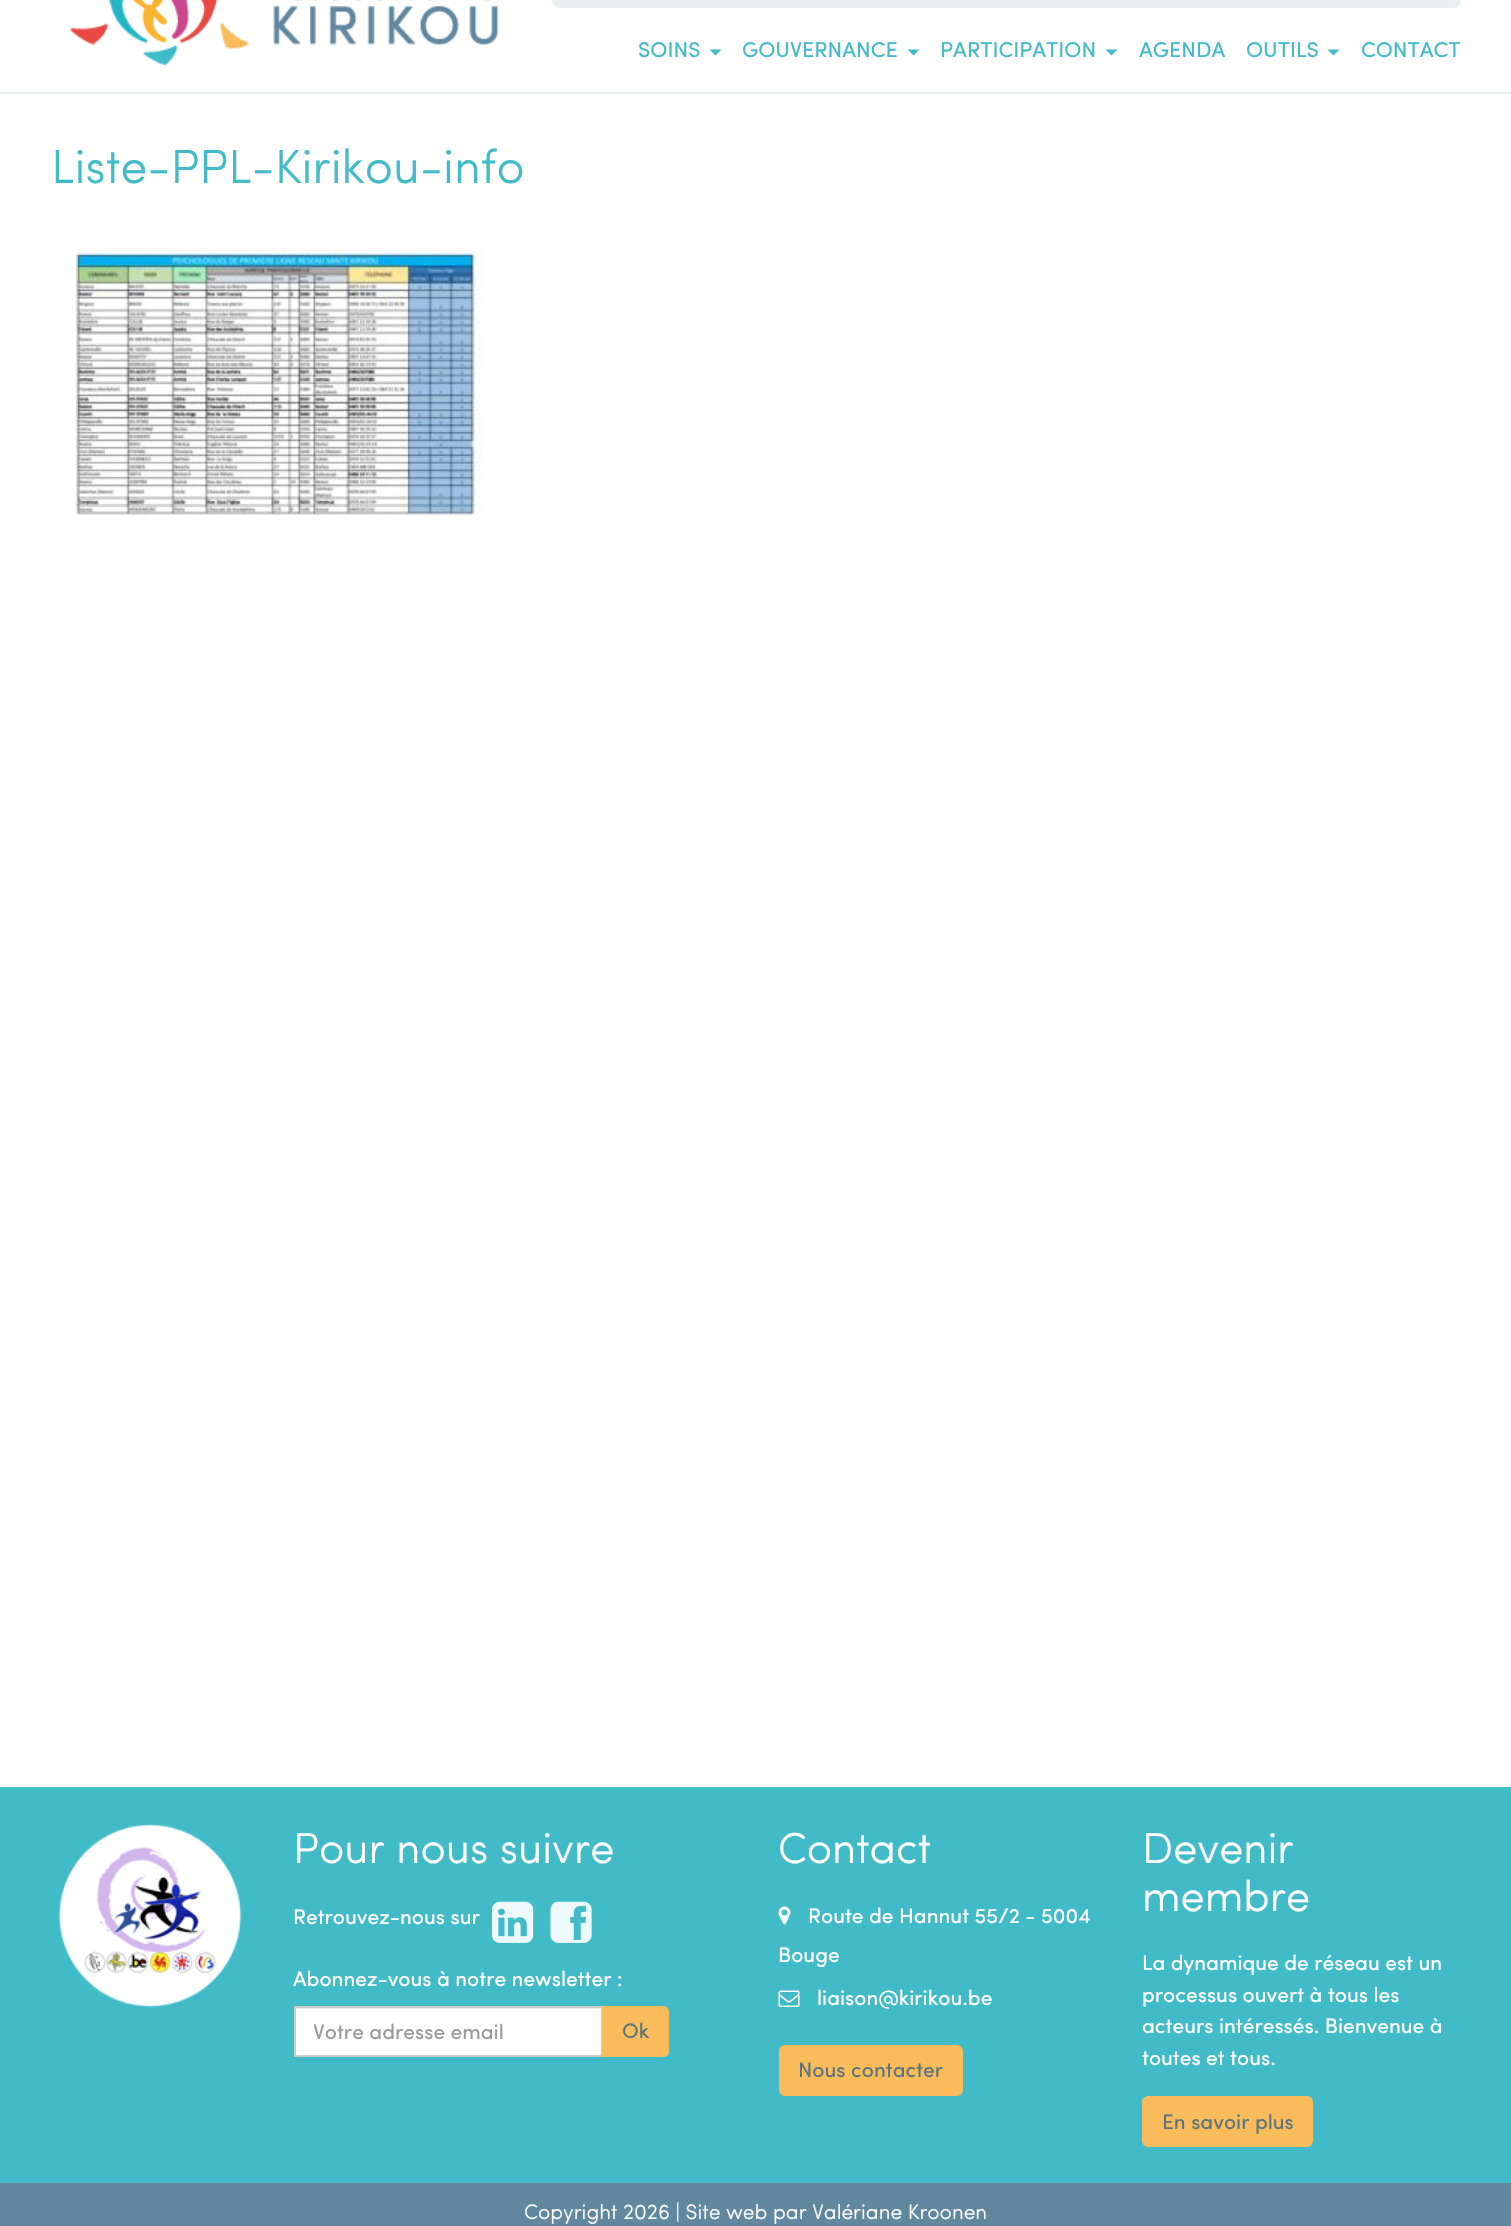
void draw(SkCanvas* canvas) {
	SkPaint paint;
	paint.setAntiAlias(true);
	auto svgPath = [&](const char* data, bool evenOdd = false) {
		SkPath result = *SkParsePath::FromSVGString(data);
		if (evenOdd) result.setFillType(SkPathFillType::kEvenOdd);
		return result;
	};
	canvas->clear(0xffffffff);
	paint.setColor(0xffe7eff0);
	canvas->drawRoundRect(SkRect::MakeXYWH(552, -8, 909, 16), 8, 8, paint);
	canvas->drawRect(SkRect::MakeXYWH(0, 92, 1511, 2), paint);
	canvas->drawImageRect(SkImages::DeferredFromEncodedData(SkData::MakeFromFileName("img1.png")), SkRect::MakeXYWH(69, 0, 430, 66), SkSamplingOptions());
	SkFont f1(fontMgr->matchFamilyStyle("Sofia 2", SkFontStyle::Normal()), 21.5);
	f1.setSubpixel(true);
	paint.setColor(0xff42bbc9);
	canvas->drawString("SOINS", 638, 57, f1, paint);
	canvas->drawPath(svgPath("M709.5 49.5H721.5L715.5 55.5Z"), paint);
	canvas->drawString("GOUVERNANCE", 742, 57, f1, paint);
	canvas->drawPath(svgPath("M907.5 49.5H919.5L913.5 55.5Z"), paint);
	canvas->drawString("PARTICIPATION", 940, 57, f1, paint);
	canvas->drawPath(svgPath("M1105.5 49.5H1117.5L1111.5 55.5Z"), paint);
	canvas->drawString("AGENDA", 1139, 57, f1, paint);
	canvas->drawString("OUTILS", 1246, 57, f1, paint);
	canvas->drawPath(svgPath("M1327.5 49.5H1339.5L1333.5 55.5Z"), paint);
	canvas->drawString("CONTACT", 1361, 57, f1, paint);
	SkFont f2(fontMgr->matchFamilyStyle("Sofia", SkFontStyle::Normal()), 48);
	f2.setSubpixel(true);
	canvas->drawString("Liste-PPL-Kirikou-info", 51, 183, f2, paint);
	canvas->drawImageRect(SkImages::DeferredFromEncodedData(SkData::MakeFromFileName("img2.png")), SkRect::MakeXYWH(74, 249, 410, 266), SkSamplingOptions());
	canvas->drawRect(SkRect::MakeXYWH(0, 1787, 1511, 396), paint);
	canvas->drawImageRect(SkImages::DeferredFromEncodedData(SkData::MakeFromFileName("img3.png")), SkRect::MakeXYWH(58, 1824, 184, 184), SkSamplingOptions());
	SkFont f3(fontMgr->matchFamilyStyle("Sofia", SkFontStyle::Normal()), 43.25);
	f3.setSubpixel(true);
	paint.setColor(0xffffffff);
	canvas->drawString("Pour nous suivre", 293, 1863, f3, paint);
	SkFont f4(fontMgr->matchFamilyStyle("Sofia 2", SkFontStyle::Normal()), 21);
	f4.setSubpixel(true);
	canvas->drawString("Retrouvez-nous sur", 293, 1924, f4, paint);
	canvas->drawImageRect(SkImages::DeferredFromEncodedData(SkData::MakeFromFileName("img4.png")), SkRect::MakeXYWH(492, 1901, 42, 42), SkSamplingOptions());
	canvas->drawImageRect(SkImages::DeferredFromEncodedData(SkData::MakeFromFileName("img5.png")), SkRect::MakeXYWH(550, 1901, 42, 42), SkSamplingOptions());
	canvas->drawString("Abonnez-vous à notre newsletter :", 293, 1986, f4, paint);
	canvas->drawRect(SkRect::MakeXYWH(296, 2009, 305, 46), paint);
	paint.setColor(0xffececec);
	canvas->drawRect(SkRect::MakeXYWH(296, 2008, 306, 1), paint);
	paint.setStroke(true);
	paint.setStrokeWidth(2);
	paint.setColor(0xffcccccc);
	canvas->drawRect(SkRect::MakeXYWH(295, 2007, 307, 49), paint);
	paint.setStroke(false);
	paint.setColor(0xff999999);
	canvas->drawString("Votre adresse email", 313, 2039, f4, paint);
	paint.setColor(0xfffabc5b);
	canvas->drawPath(svgPath("M603 2007H663C666 2007 668 2009 668 2012V2051C668 2054 666 2056 663 2056H603Z"), paint);
	paint.setStroke(true);
	canvas->drawPath(svgPath("M603 2007H663C666 2007 668 2009 668 2012V2051C668 2054 666 2056 663 2056H603Z"), paint);
	paint.setStroke(false);
	paint.setColor(0xff59747e);
	canvas->drawString("Ok", 622, 2038, f4, paint);
	paint.setColor(0xffffffff);
	canvas->drawString("Contact", 778, 1863, f3, paint);
	canvas->drawImageRect(SkImages::DeferredFromEncodedData(SkData::MakeFromFileName("img6.png")), SkRect::MakeXYWH(778, 1906, 13, 19), SkSamplingOptions());
	canvas->drawString("Route de Hannut 55/2 - 5004", 808, 1923, f4, paint);
	canvas->drawString("Bouge", 778, 1962, f4, paint);
	canvas->drawImageRect(SkImages::DeferredFromEncodedData(SkData::MakeFromFileName("img7.png")), SkRect::MakeXYWH(778, 1990, 22, 17), SkSamplingOptions());
	canvas->drawString("liaison@kirikou.be", 817, 2005, f4, paint);
	paint.setColor(0xfffabc5b);
	canvas->drawRoundRect(SkRect::MakeXYWH(780, 2046, 182, 49), 5, 5, paint);
	paint.setStroke(true);
	canvas->drawRoundRect(SkRect::MakeXYWH(780, 2046, 182, 49), 5, 5, paint);
	paint.setStroke(false);
	paint.setColor(0xff59747e);
	canvas->drawString("Nous contacter", 798, 2077, f4, paint);
	paint.setColor(0xffffffff);
	canvas->drawString("Devenir", 1142, 1863, f3, paint);
	canvas->drawString("membre", 1142, 1911, f3, paint);
	canvas->drawString("La dynamique de réseau est un", 1142, 1970, f4, paint);
	canvas->drawString("processus ouvert à tous les", 1142, 2002, f4, paint);
	canvas->drawString("acteurs intéressés. Bienvenue à", 1142, 2033, f4, paint);
	canvas->drawString("toutes et tous.", 1142, 2065, f4, paint);
	paint.setColor(0xfffabc5b);
	canvas->drawRoundRect(SkRect::MakeXYWH(1143, 2097, 169, 49), 5, 5, paint);
	paint.setStroke(true);
	canvas->drawRoundRect(SkRect::MakeXYWH(1143, 2097, 169, 49), 5, 5, paint);
	paint.setStroke(false);
	paint.setColor(0xff59747e);
	canvas->drawString("En savoir plus", 1162, 2129, f4, paint);
	paint.setColor(0xff62889f);
	canvas->drawRect(SkRect::MakeXYWH(0, 2183, 1511, 43), paint);
	SkFont f5(fontMgr->matchFamilyStyle("Sofia", SkFontStyle::Normal()), 21);
	f5.setSubpixel(true);
	paint.setColor(0xffffffff);
	canvas->drawString("Copyright 2026 | Site web par Valériane Kroonen", 524, 2219, f5, paint);
}
